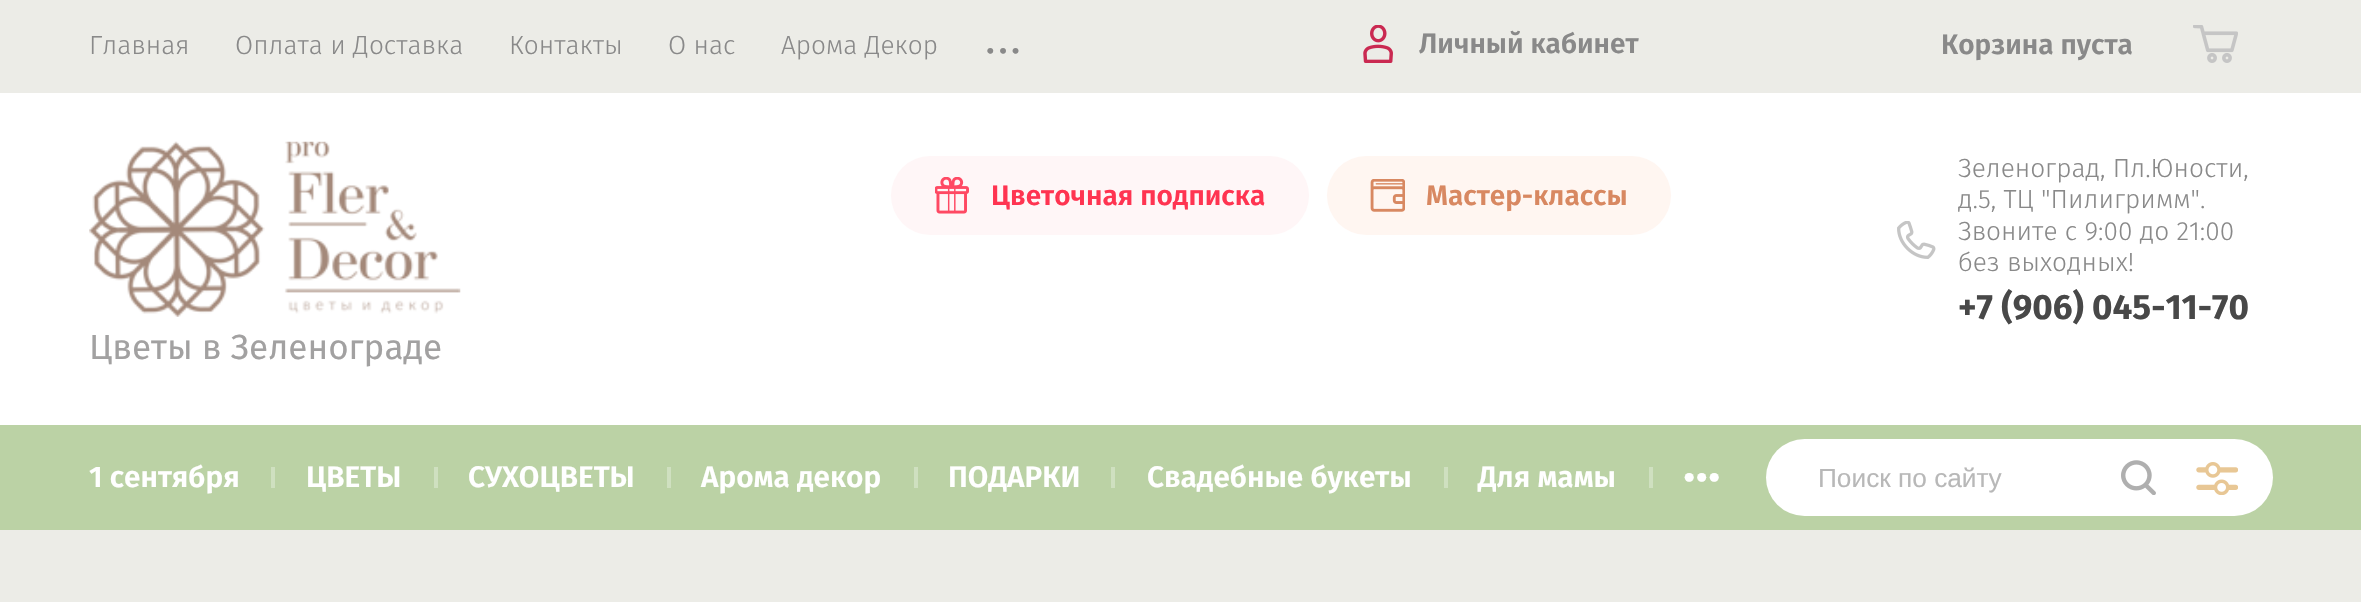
void draw(SkCanvas* canvas) {
	SkPaint paint;
	paint.setAntiAlias(true);
	canvas->clear(0xffffffff);
	paint.setColor(0xffecece7);
	canvas->drawRect(SkRect::MakeXYWH(0, 0, 2361, 93), paint);
	SkFont f1(fontMgr->matchFamilyStyle("Fira Sans", SkFontStyle(300, SkFontStyle::kNormal_Width, SkFontStyle::kUpright_Slant)), 26.25);
	f1.setSubpixel(true);
	paint.setColor(0xff898989);
	canvas->drawString("Главная", 89, 54, f1, paint);
	canvas->drawString("Оплата и Доставка", 235, 54, f1, paint);
	canvas->drawString("Контакты", 509, 54, f1, paint);
	canvas->drawString("О нас", 668, 54, f1, paint);
	canvas->drawString("Арома Декор", 781, 54, f1, paint);
	SkFont f2(fontMgr->matchFamilyStyle("Fira Sans", SkFontStyle(300, SkFontStyle::kNormal_Width, SkFontStyle::kUpright_Slant)), 61);
	f2.setSubpixel(true);
	canvas->drawString("...", 984, 53, f2, paint);
	canvas->drawImageRect(SkImages::DeferredFromEncodedData(SkData::MakeFromFileName("img1.png")), SkRect::MakeXYWH(1363, 25, 30, 38), SkSamplingOptions());
	SkFont f3(fontMgr->matchFamilyStyle("Fira Sans", SkFontStyle(600, SkFontStyle::kNormal_Width, SkFontStyle::kUpright_Slant)), 28);
	f3.setSubpixel(true);
	canvas->drawString("Личный кабинет", 1419, 53, f3, paint);
	canvas->drawImageRect(SkImages::DeferredFromEncodedData(SkData::MakeFromFileName("img2.png")), SkRect::MakeXYWH(2193, 25, 45, 38), SkSamplingOptions());
	canvas->drawString("Корзина пуста", 1941, 54, f3, paint);
	paint.setColor(0xfffff6f7);
	canvas->drawRoundRect(SkRect::MakeXYWH(891, 156, 418, 79), 39.5, 39.5, paint);
	canvas->drawImageRect(SkImages::DeferredFromEncodedData(SkData::MakeFromFileName("img3.png")), SkRect::MakeXYWH(935, 177, 34, 37), SkSamplingOptions());
	paint.setColor(0xffff3451);
	canvas->drawString("Цветочная подписка", 991, 205, f3, paint);
	paint.setColor(0xfffff6f1);
	canvas->drawRoundRect(SkRect::MakeXYWH(1327, 156, 344, 79), 39.5, 39.5, paint);
	canvas->drawImageRect(SkImages::DeferredFromEncodedData(SkData::MakeFromFileName("img4.png")), SkRect::MakeXYWH(1370, 179, 35, 33), SkSamplingOptions());
	paint.setColor(0xffd88861);
	canvas->drawString("Мастер-классы", 1426, 205, f3, paint);
	canvas->drawImageRect(SkImages::DeferredFromEncodedData(SkData::MakeFromFileName("img5.png")), SkRect::MakeXYWH(1897, 221, 39, 38), SkSamplingOptions());
	paint.setColor(0xff898989);
	canvas->drawString("Зеленоград, Пл.Юности,", 1958, 177, f1, paint);
	canvas->drawString("д.5, ТЦ \"Пилигримм\".", 1958, 208, f1, paint);
	canvas->drawString("Звоните с 9:00 до 21:00", 1958, 240, f1, paint);
	canvas->drawString("без выходных!", 1958, 271, f1, paint);
	SkFont f4(fontMgr->matchFamilyStyle("Fira Sans", SkFontStyle::Bold()), 35);
	f4.setSubpixel(true);
	paint.setColor(0xff484848);
	canvas->drawString("+7 (906) 045-11-70", 1958, 319, f4, paint);
	canvas->drawImageRect(SkImages::DeferredFromEncodedData(SkData::MakeFromFileName("img6.png")), SkRect::MakeXYWH(89, 141, 372, 176), SkSamplingOptions());
	SkFont f5(fontMgr->matchFamilyStyle("Fira Sans", SkFontStyle::Normal()), 35);
	f5.setSubpixel(true);
	paint.setColor(0xffa2a1a1);
	canvas->drawString("Цветы в Зеленограде", 89, 359, f5, paint);
	paint.setColor(0xffecece7);
	canvas->drawRect(SkRect::MakeXYWH(0, 530, 2361, 72), paint);
	paint.setColor(0xffbbd2a5);
	canvas->drawRect(SkRect::MakeXYWH(0, 425, 2361, 105), paint);
	SkFont f6(fontMgr->matchFamilyStyle("Fira Sans", SkFontStyle(600, SkFontStyle::kNormal_Width, SkFontStyle::kUpright_Slant)), 29.75);
	f6.setSubpixel(true);
	paint.setColor(0xffffffff);
	canvas->drawString("1 сентября", 89, 487, f6, paint);
	paint.setColor(0xffcfe0c0);
	canvas->drawRect(SkRect::MakeXYWH(271, 467, 4, 21), paint);
	paint.setColor(0xffffffff);
	canvas->drawString("ЦВЕТЫ", 306, 487, f6, paint);
	paint.setColor(0xffcfe0c0);
	canvas->drawRect(SkRect::MakeXYWH(434, 467, 4, 21), paint);
	paint.setColor(0xffffffff);
	canvas->drawString("СУХОЦВЕТЫ", 468, 487, f6, paint);
	paint.setColor(0xffcfe0c0);
	canvas->drawRect(SkRect::MakeXYWH(667, 467, 4, 21), paint);
	paint.setColor(0xffffffff);
	canvas->drawString("Арома декор", 701, 487, f6, paint);
	paint.setColor(0xffcfe0c0);
	canvas->drawRect(SkRect::MakeXYWH(914, 467, 4, 21), paint);
	paint.setColor(0xffffffff);
	canvas->drawString("ПОДАРКИ", 948, 487, f6, paint);
	paint.setColor(0xffcfe0c0);
	canvas->drawRect(SkRect::MakeXYWH(1111, 467, 4, 21), paint);
	paint.setColor(0xffffffff);
	canvas->drawString("Свадебные букеты", 1147, 487, f6, paint);
	paint.setColor(0xffcfe0c0);
	canvas->drawRect(SkRect::MakeXYWH(1444, 467, 4, 21), paint);
	paint.setColor(0xffffffff);
	canvas->drawString("Для мамы", 1478, 487, f6, paint);
	paint.setColor(0xffcfe0c0);
	canvas->drawRect(SkRect::MakeXYWH(1649, 467, 4, 21), paint);
	SkFont f7(fontMgr->matchFamilyStyle("Fira Sans", SkFontStyle(600, SkFontStyle::kNormal_Width, SkFontStyle::kUpright_Slant)), 52);
	f7.setSubpixel(true);
	paint.setColor(0xffffffff);
	canvas->drawString("...", 1683, 481, f7, paint);
	canvas->drawRoundRect(SkRect::MakeXYWH(1766, 439, 507, 77), 38.5, 38.5, paint);
	SkFont f8(fontMgr->matchFamilyStyle("Liberation Sans", SkFontStyle::Normal()), 26.25);
	f8.setSubpixel(true);
	paint.setColor(0xffb8b8b8);
	canvas->drawString("Поиск по сайту", 1818, 487, f8, paint);
	canvas->drawImageRect(SkImages::DeferredFromEncodedData(SkData::MakeFromFileName("img7.png")), SkRect::MakeXYWH(2121, 460, 35, 35), SkSamplingOptions());
	canvas->drawImageRect(SkImages::DeferredFromEncodedData(SkData::MakeFromFileName("img8.png")), SkRect::MakeXYWH(2196, 462, 42, 33), SkSamplingOptions());
}
